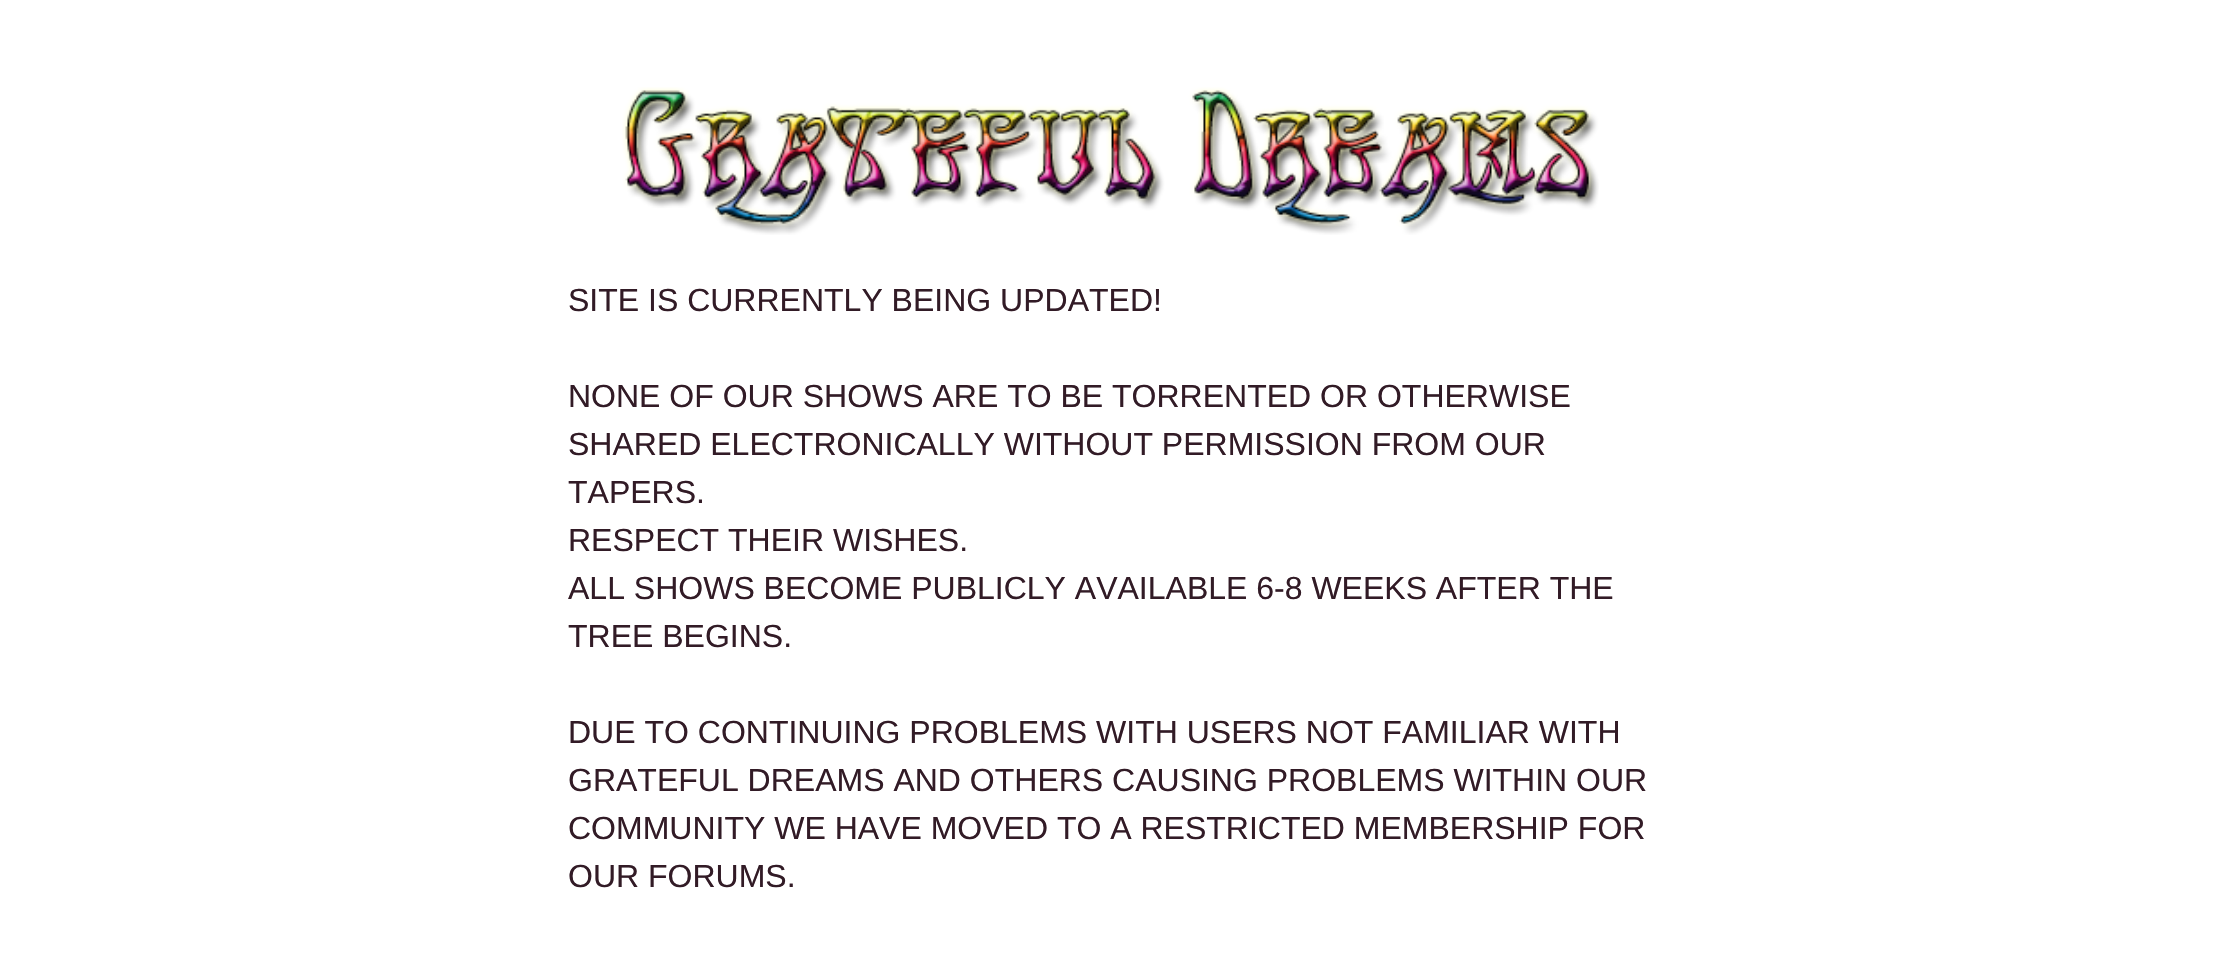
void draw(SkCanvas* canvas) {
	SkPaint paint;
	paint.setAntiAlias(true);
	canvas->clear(0xffffffff);
	canvas->drawImageRect(SkImages::DeferredFromEncodedData(SkData::MakeFromFileName("img1.png")), SkRect::MakeXYWH(622, 87, 977, 148), SkSamplingOptions());
	SkFont f1(fontMgr->matchFamilyStyle("Liberation Sans", SkFontStyle::Normal()), 32);
	f1.setSubpixel(true);
	paint.setColor(0xff321b26);
	canvas->drawString("SITE IS CURRENTLY BEING UPDATED!", 568, 311, f1, paint);
	canvas->drawString("NONE OF OUR SHOWS ARE TO BE TORRENTED OR OTHERWISE", 568, 407, f1, paint);
	canvas->drawString("SHARED ELECTRONICALLY WITHOUT PERMISSION FROM OUR", 568, 455, f1, paint);
	canvas->drawString("TAPERS.", 568, 503, f1, paint);
	canvas->drawString("RESPECT THEIR WISHES.", 568, 551, f1, paint);
	canvas->drawString("ALL SHOWS BECOME PUBLICLY AVAILABLE 6-8 WEEKS AFTER THE", 568, 599, f1, paint);
	canvas->drawString("TREE BEGINS.", 568, 647, f1, paint);
	canvas->drawString("DUE TO CONTINUING PROBLEMS WITH USERS NOT FAMILIAR WITH", 568, 743, f1, paint);
	canvas->drawString("GRATEFUL DREAMS AND OTHERS CAUSING PROBLEMS WITHIN OUR", 568, 791, f1, paint);
	canvas->drawString("COMMUNITY WE HAVE MOVED TO A RESTRICTED MEMBERSHIP FOR", 568, 839, f1, paint);
	canvas->drawString("OUR FORUMS.", 568, 887, f1, paint);
}
